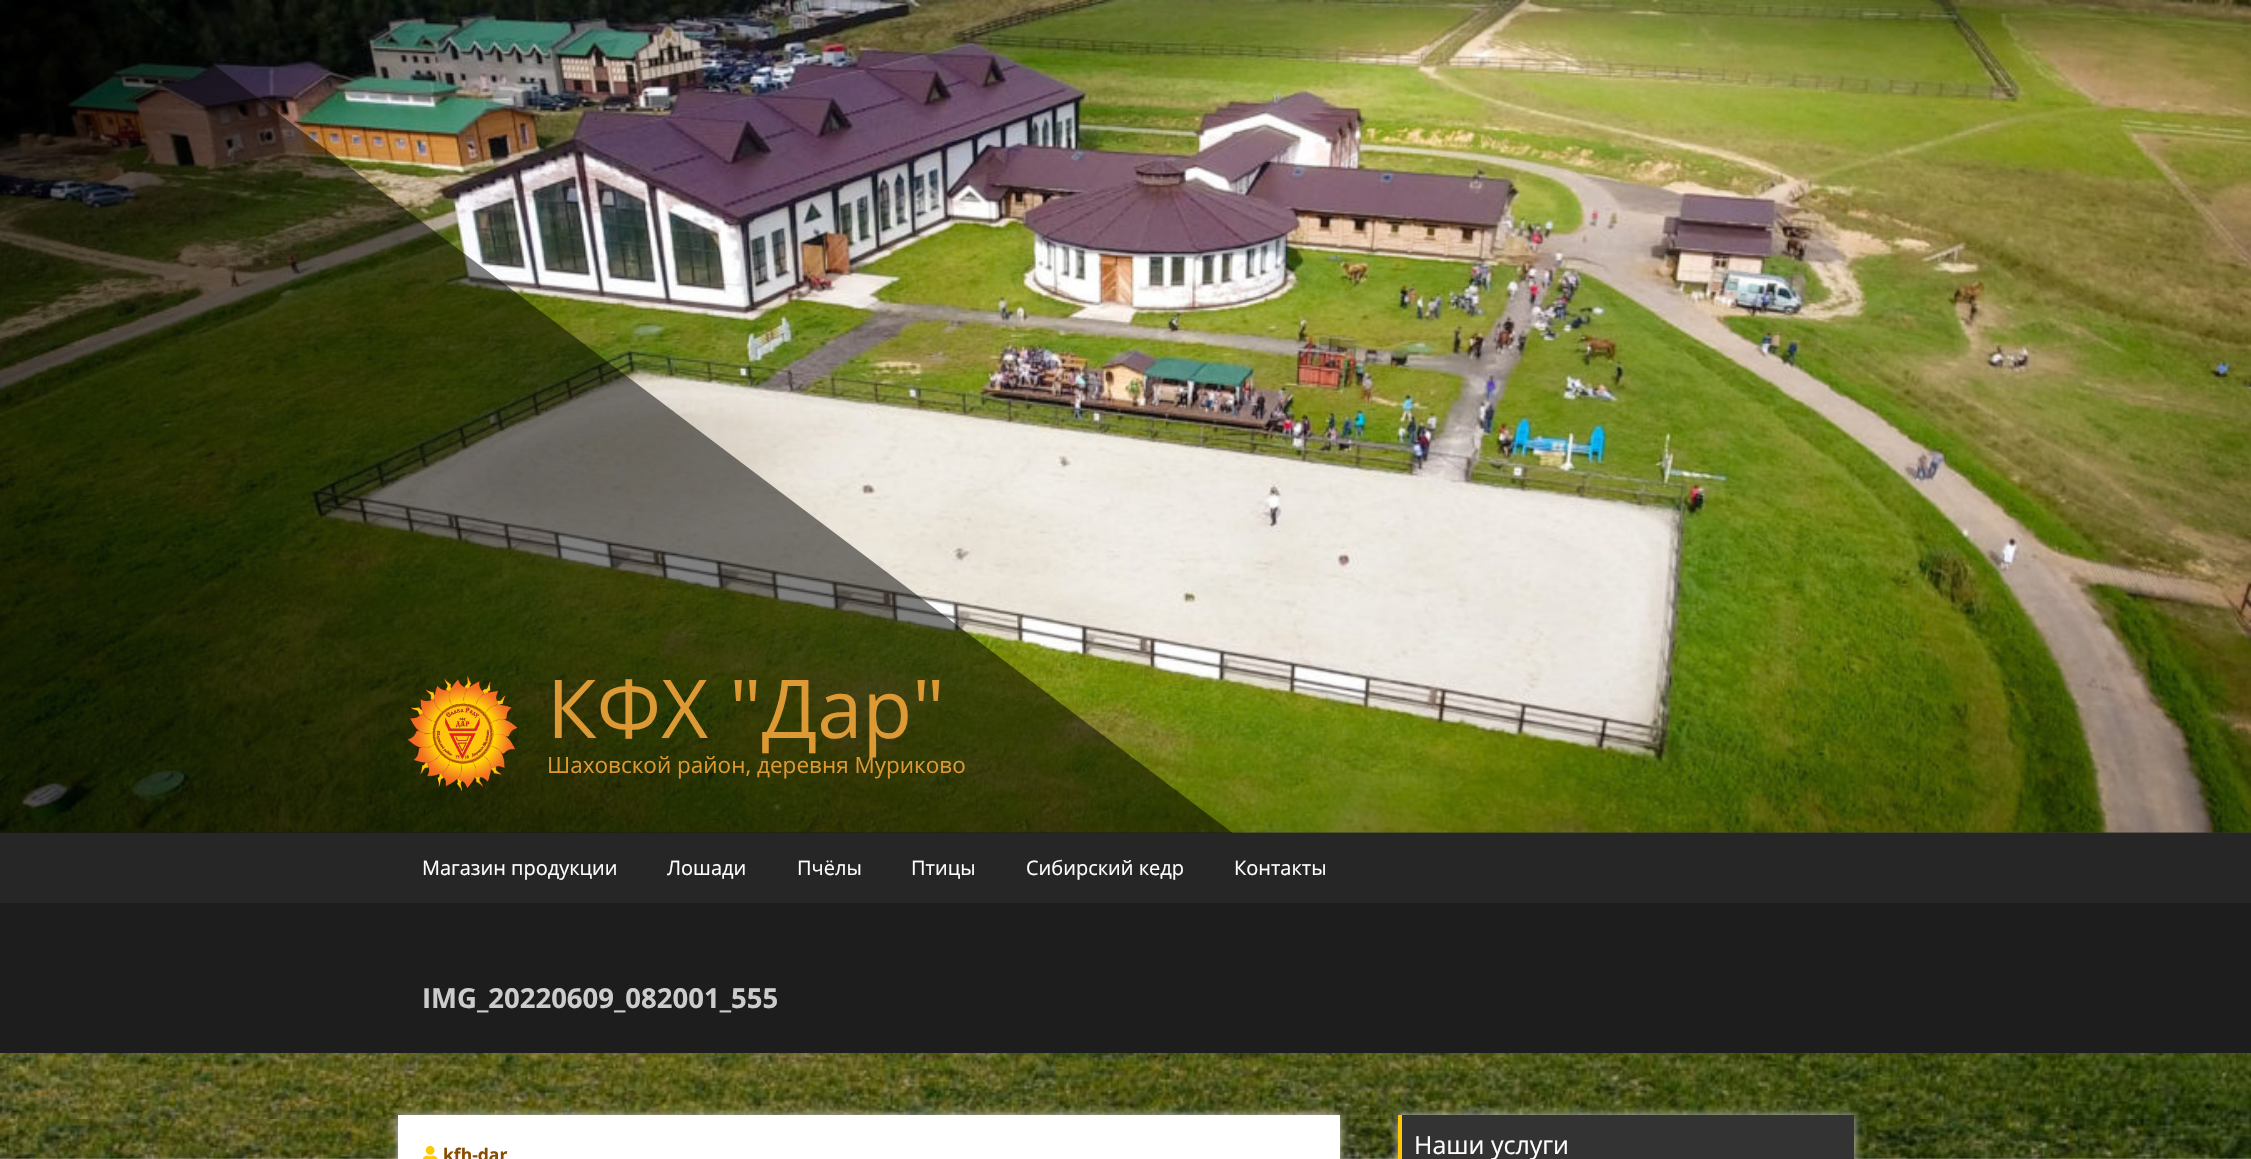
void draw(SkCanvas* canvas) {
	SkPaint paint;
	paint.setAntiAlias(true);
	auto svgPath = [&](const char* data, bool evenOdd = false) {
		SkPath result = *SkParsePath::FromSVGString(data);
		if (evenOdd) result.setFillType(SkPathFillType::kEvenOdd);
		return result;
	};
	canvas->clear(0xffffffff);
	canvas->drawImageRect(SkImages::DeferredFromEncodedData(SkData::MakeFromFileName("img1.png")), SkRect::MakeXYWH(0, 1053, 2251, 106), SkSamplingOptions());
	paint.setColor(0xff333333);
	canvas->drawRect(SkRect::MakeXYWH(0, 832, 2251, 1), paint);
	canvas->drawImageRect(SkImages::DeferredFromEncodedData(SkData::MakeFromFileName("img2.png")), SkRect::MakeXYWH(0, 0, 2251, 833), SkSamplingOptions());
	canvas->save();
	canvas->clipRect(SkRect::MakeXYWH(0, 0, 2251, 833));
	paint.setColor(0x80000000);
	canvas->drawPath(svgPath("M-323-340L1474 1015L722 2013L-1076 658Z"), paint);
	canvas->restore();
	canvas->drawImageRect(SkImages::DeferredFromEncodedData(SkData::MakeFromFileName("img3.png")), SkRect::MakeXYWH(407, 675, 111, 117), SkSamplingOptions());
	SkFont f1(fontMgr->matchFamilyStyle("Open Sans", SkFontStyle::Normal()), 81.25);
	f1.setSubpixel(true);
	paint.setColor(0xffdd9933);
	canvas->drawString("КФХ \"Дар\"", 547, 738, f1, paint);
	SkFont f2(fontMgr->matchFamilyStyle("Open Sans", SkFontStyle::Normal()), 22.5);
	f2.setSubpixel(true);
	canvas->drawString("Шаховской район, деревня Муриково", 547, 773, f2, paint);
	paint.setColor(0xff262626);
	canvas->drawRect(SkRect::MakeXYWH(0, 833, 2251, 70), paint);
	SkFont f3(fontMgr->matchFamilyStyle("Open Sans", SkFontStyle::Normal()), 20);
	f3.setSubpixel(true);
	paint.setColor(0xffffffff);
	canvas->drawString("Магазин продукции", 422, 875, f3, paint);
	canvas->drawString("Лошади", 667, 875, f3, paint);
	canvas->drawString("Пчёлы", 797, 875, f3, paint);
	canvas->drawString("Птицы", 911, 875, f3, paint);
	canvas->drawString("Сибирский кедр", 1026, 875, f3, paint);
	canvas->drawString("Контакты", 1234, 875, f3, paint);
	paint.setColor(0xff1d1d1d);
	canvas->drawRect(SkRect::MakeXYWH(0, 903, 2251, 150), paint);
	SkFont f4(fontMgr->matchFamilyStyle("Open Sans", SkFontStyle::Bold()), 27.5);
	f4.setSubpixel(true);
	paint.setColor(0xffcccccc);
	canvas->drawString("IMG_20220609_082001_555", 422, 1008, f4, paint);
	paint.setColor(0xffc2c2c2);
	paint.setMaskFilter(SkMaskFilter::MakeBlur(kNormal_SkBlurStyle, 4.5));
	canvas->drawRect(SkRect::MakeXYWH(398, 1115, 942, 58), paint);
	paint.setMaskFilter(nullptr);
	paint.setColor(0xffffffff);
	canvas->drawRect(SkRect::MakeXYWH(398, 1115, 942, 44), paint);
	canvas->drawImageRect(SkImages::DeferredFromEncodedData(SkData::MakeFromFileName("img4.png")), SkRect::MakeXYWH(422, 1145, 16, 14), SkSamplingOptions());
	SkFont f5(fontMgr->matchFamilyStyle("Open Sans", SkFontStyle::Bold()), 17.5);
	f5.setSubpixel(true);
	paint.setColor(0xff874c00);
	canvas->drawString("kfh-dar", 443, 1161, f5, paint);
	paint.setColor(0xffc2c2c2);
	paint.setMaskFilter(SkMaskFilter::MakeBlur(kNormal_SkBlurStyle, 4.5));
	canvas->drawRect(SkRect::MakeXYWH(1398, 1115, 456, 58), paint);
	paint.setMaskFilter(nullptr);
	paint.setColor(0xff333333);
	canvas->drawRect(SkRect::MakeXYWH(1402, 1115, 452, 44), paint);
	paint.setColor(0xffffc800);
	canvas->drawRect(SkRect::MakeXYWH(1398, 1115, 4, 44), paint);
	SkFont f6(fontMgr->matchFamilyStyle("Open Sans", SkFontStyle::Normal()), 25);
	f6.setSubpixel(true);
	paint.setColor(0xffffffff);
	canvas->drawString("Наши услуги", 1414, 1154, f6, paint);
}
